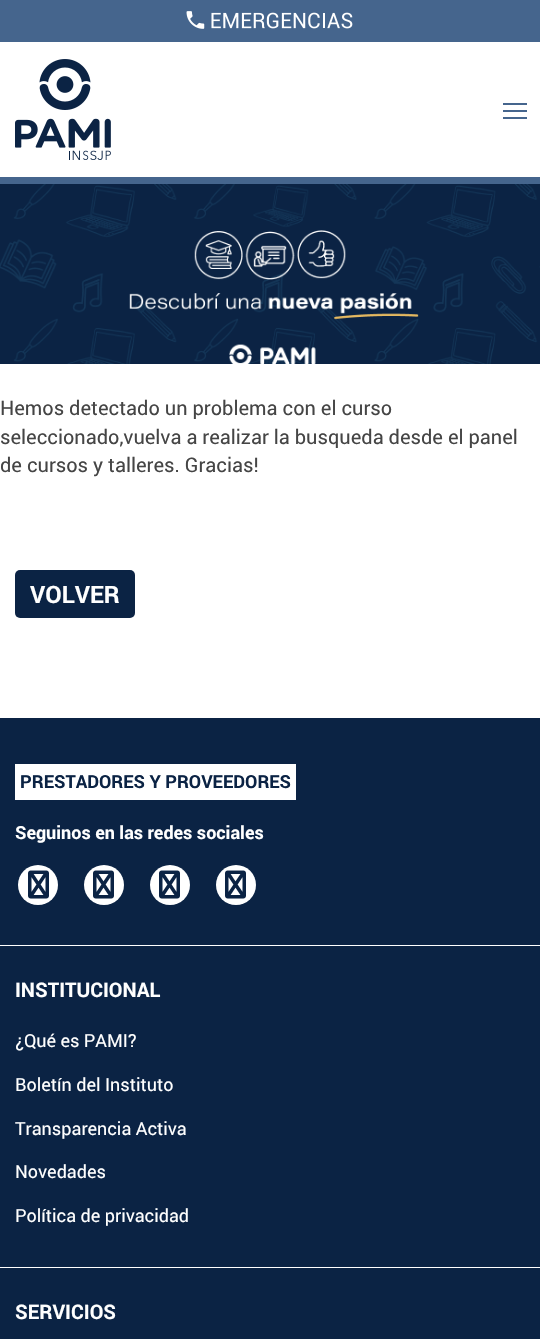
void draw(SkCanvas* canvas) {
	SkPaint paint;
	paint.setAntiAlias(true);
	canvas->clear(0xffffffff);
	paint.setColor(0xff45658d);
	canvas->drawRect(SkRect::MakeXYWH(0, 177, 540, 7), paint);
	canvas->drawRect(SkRect::MakeXYWH(0, 0, 540, 42), paint);
	canvas->drawImageRect(SkImages::DeferredFromEncodedData(SkData::MakeFromFileName("img1.png")), SkRect::MakeXYWH(186, 11, 167, 18), SkSamplingOptions());
	canvas->drawImageRect(SkImages::DeferredFromEncodedData(SkData::MakeFromFileName("img2.png")), SkRect::MakeXYWH(15, 59, 96, 101), SkSamplingOptions());
	canvas->drawRect(SkRect::MakeXYWH(503, 110, 24, 2), paint);
	canvas->drawRect(SkRect::MakeXYWH(503, 103, 24, 2), paint);
	canvas->drawRect(SkRect::MakeXYWH(503, 117, 24, 2), paint);
	canvas->drawImageRect(SkImages::DeferredFromEncodedData(SkData::MakeFromFileName("img3.png")), SkRect::MakeXYWH(0, 184, 540, 180), SkSamplingOptions());
	SkFont f1(fontMgr->matchFamilyStyle("roboto", SkFontStyle::Normal()), 20);
	f1.setSubpixel(true);
	paint.setColor(0xff454545);
	canvas->drawString("Hemos detectado un problema con el curso", 0, 415, f1, paint);
	canvas->drawString("seleccionado,vuelva a realizar la busqueda desde el panel", 0, 444, f1, paint);
	canvas->drawString("de cursos y talleres. Gracias!", 0, 472, f1, paint);
	paint.setColor(0xff0b2344);
	canvas->drawRoundRect(SkRect::MakeXYWH(15, 570, 120, 48), 5, 5, paint);
	SkFont f2(fontMgr->matchFamilyStyle("roboto", SkFontStyle::Bold()), 24);
	f2.setSubpixel(true);
	paint.setColor(0xffffffff);
	canvas->drawString("VOLVER", 30, 603, f2, paint);
	paint.setColor(0xff0b2344);
	canvas->drawRect(SkRect::MakeXYWH(0, 718, 540, 621), paint);
	paint.setColor(0xffffffff);
	canvas->drawRect(SkRect::MakeXYWH(0, 945, 540, 1), paint);
	canvas->drawRect(SkRect::MakeXYWH(15, 764, 281, 36), paint);
	SkFont f3(fontMgr->matchFamilyStyle("roboto", SkFontStyle::Bold()), 18);
	f3.setSubpixel(true);
	paint.setColor(0xff0b2344);
	canvas->drawString("PRESTADORES Y PROVEEDORES", 20, 788, f3, paint);
	paint.setColor(0xffffffff);
	canvas->drawString("Seguinos en las redes sociales", 15, 839, f3, paint);
	canvas->drawCircle(38, 885, 20, paint);
	canvas->drawImageRect(SkImages::DeferredFromEncodedData(SkData::MakeFromFileName("img4.png")), SkRect::MakeXYWH(28, 870, 21, 29), SkSamplingOptions());
	canvas->drawCircle(104, 885, 20, paint);
	canvas->drawImageRect(SkImages::DeferredFromEncodedData(SkData::MakeFromFileName("img4.png")), SkRect::MakeXYWH(93, 870, 21, 29), SkSamplingOptions());
	canvas->drawCircle(170, 885, 20, paint);
	canvas->drawImageRect(SkImages::DeferredFromEncodedData(SkData::MakeFromFileName("img4.png")), SkRect::MakeXYWH(159, 870, 21, 29), SkSamplingOptions());
	canvas->drawCircle(236, 885, 20, paint);
	canvas->drawImageRect(SkImages::DeferredFromEncodedData(SkData::MakeFromFileName("img4.png")), SkRect::MakeXYWH(225, 870, 21, 29), SkSamplingOptions());
	canvas->drawRect(SkRect::MakeXYWH(0, 1267, 540, 1), paint);
	SkFont f4(fontMgr->matchFamilyStyle("roboto", SkFontStyle::Bold()), 20);
	f4.setSubpixel(true);
	canvas->drawString("INSTITUCIONAL", 15, 997, f4, paint);
	SkFont f5(fontMgr->matchFamilyStyle("roboto", SkFontStyle::Normal()), 18);
	f5.setSubpixel(true);
	canvas->drawString("¿Qué es PAMI?", 15, 1047, f5, paint);
	canvas->drawString("Boletín del Instituto", 15, 1091, f5, paint);
	canvas->drawString("Transparencia Activa", 15, 1135, f5, paint);
	canvas->drawString("Novedades", 15, 1178, f5, paint);
	canvas->drawString("Política de privacidad", 15, 1222, f5, paint);
	canvas->drawString("SERVICIOS", 15, 1319, f4, paint);
}
